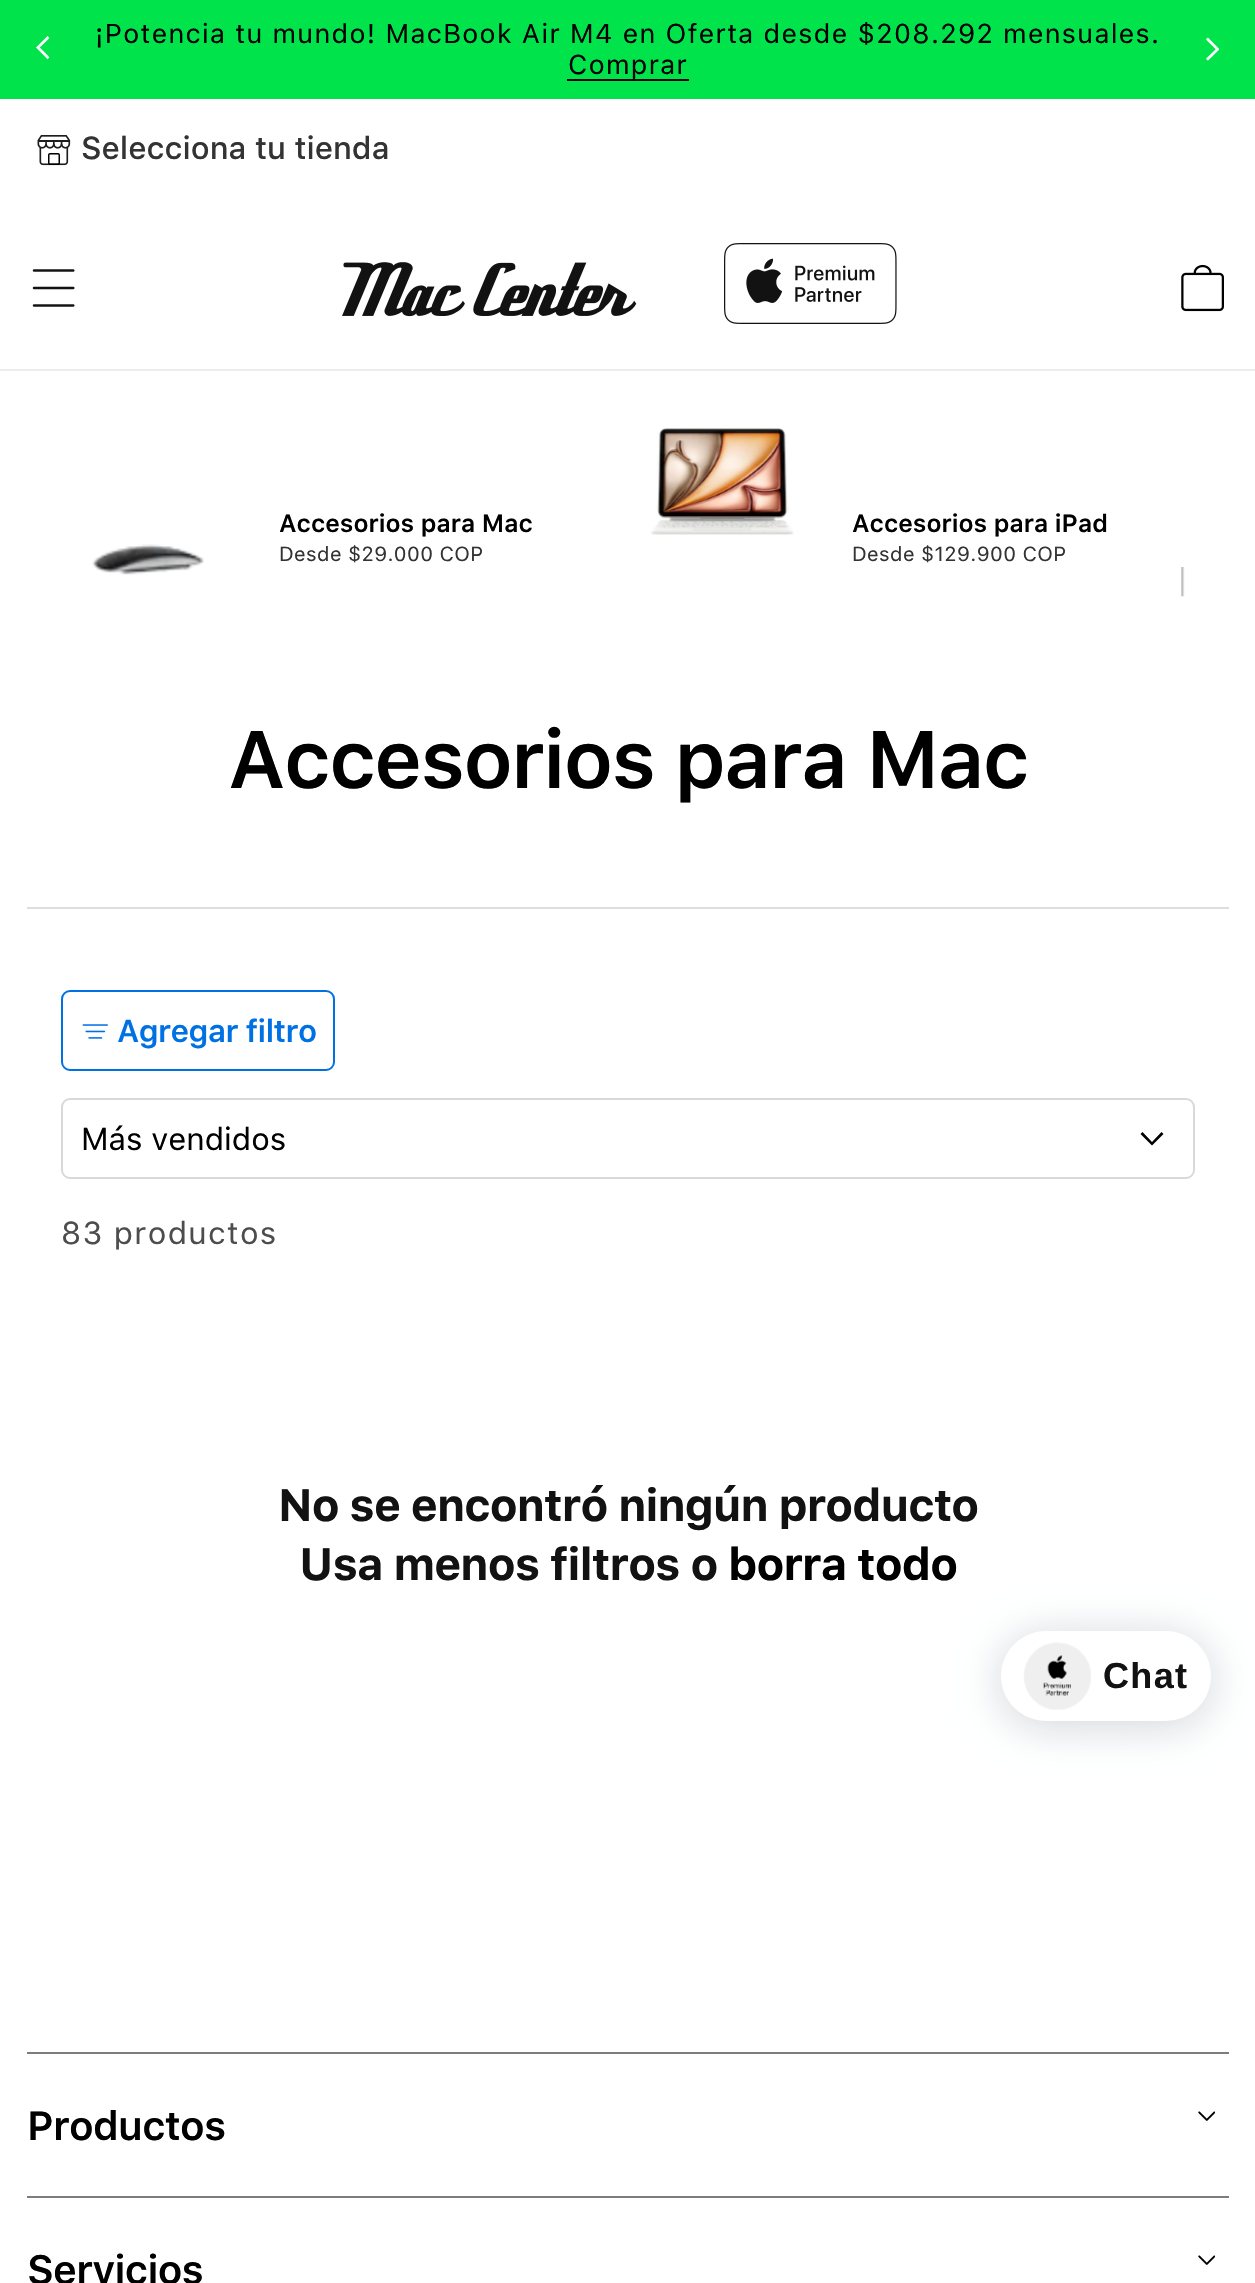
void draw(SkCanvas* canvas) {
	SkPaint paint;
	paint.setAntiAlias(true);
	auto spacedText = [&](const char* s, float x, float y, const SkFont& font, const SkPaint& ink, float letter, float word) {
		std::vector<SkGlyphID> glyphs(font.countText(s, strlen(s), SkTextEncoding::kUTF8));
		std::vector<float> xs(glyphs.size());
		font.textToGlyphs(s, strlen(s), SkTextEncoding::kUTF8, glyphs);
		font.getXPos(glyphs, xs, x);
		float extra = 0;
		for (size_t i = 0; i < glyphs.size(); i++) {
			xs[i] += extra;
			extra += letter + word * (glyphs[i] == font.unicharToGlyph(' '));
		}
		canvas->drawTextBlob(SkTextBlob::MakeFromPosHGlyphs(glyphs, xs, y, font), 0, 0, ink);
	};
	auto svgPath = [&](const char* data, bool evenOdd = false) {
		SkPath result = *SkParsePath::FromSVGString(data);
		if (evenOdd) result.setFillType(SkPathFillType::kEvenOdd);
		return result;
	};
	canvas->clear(0xffffffff);
	paint.setColor(0xff00e34b);
	canvas->drawRect(SkRect::MakeXYWH(0, 0, 1255, 99), paint);
	canvas->drawImageRect(SkImages::DeferredFromEncodedData(SkData::MakeFromFileName("img1.png")), SkRect::MakeXYWH(36, 36, 14, 24), SkSamplingOptions());
	SkFont f1(fontMgr->matchFamilyStyle("SF Pro Text", SkFontStyle::Normal()), 27);
	f1.setSubpixel(true);
	paint.setColor(0xff000000);
	spacedText("¡Potencia tu mundo! MacBook Air M4 en Oferta desde $208.292 mensuales.", 95, 43, f1, paint, 1.35, 0);
	spacedText("Comprar", 568, 74, f1, paint, 1.35, 0);
	canvas->drawRect(SkRect::MakeXYWH(567, 79, 122, 2), paint);
	canvas->drawImageRect(SkImages::DeferredFromEncodedData(SkData::MakeFromFileName("img2.png")), SkRect::MakeXYWH(1206, 37, 14, 24), SkSamplingOptions());
	paint.setColor(0xffececec);
	canvas->drawRect(SkRect::MakeXYWH(0, 369, 1255, 2), paint);
	canvas->drawImageRect(SkImages::DeferredFromEncodedData(SkData::MakeFromFileName("img3.png")), SkRect::MakeXYWH(37, 135, 34, 31), SkSamplingOptions());
	SkFont f2(fontMgr->matchFamilyStyle("SF Pro Text", SkFontStyle(500, SkFontStyle::kNormal_Width, SkFontStyle::kUpright_Slant)), 31.5);
	f2.setSubpixel(true);
	paint.setColor(0xff333333);
	canvas->drawString("Selecciona tu tienda", 81, 159, f2, paint);
	canvas->drawImageRect(SkImages::DeferredFromEncodedData(SkData::MakeFromFileName("img4.png")), SkRect::MakeXYWH(32, 269, 43, 38), SkSamplingOptions());
	canvas->drawImageRect(SkImages::DeferredFromEncodedData(SkData::MakeFromFileName("img5.png")), SkRect::MakeXYWH(342, 262, 295, 55), SkSamplingOptions());
	canvas->drawImageRect(SkImages::DeferredFromEncodedData(SkData::MakeFromFileName("img6.png")), SkRect::MakeXYWH(724, 243, 173, 81), SkSamplingOptions());
	canvas->drawImageRect(SkImages::DeferredFromEncodedData(SkData::MakeFromFileName("img7.png")), SkRect::MakeXYWH(1181, 264, 43, 48), SkSamplingOptions());
	canvas->drawImageRect(SkImages::DeferredFromEncodedData(SkData::MakeFromFileName("img8.png")), SkRect::MakeXYWH(92, 544, 112, 31), SkSamplingOptions());
	SkFont f3(fontMgr->matchFamilyStyle("SF Pro Text", SkFontStyle(600, SkFontStyle::kNormal_Width, SkFontStyle::kUpright_Slant)), 24.75);
	f3.setSubpixel(true);
	paint.setColor(0xff000000);
	canvas->drawString("Accesorios para Mac", 279, 532, f3, paint);
	SkFont f4(fontMgr->matchFamilyStyle("SF Pro Text", SkFontStyle::Normal()), 20.25);
	f4.setSubpixel(true);
	paint.setColor(0xff333333);
	spacedText("Desde $29.000 COP", 279, 561, f4, paint, 0.4, 0);
	canvas->drawImageRect(SkImages::DeferredFromEncodedData(SkData::MakeFromFileName("img9.png")), SkRect::MakeXYWH(650, 428, 144, 107), SkSamplingOptions());
	paint.setColor(0xff000000);
	canvas->drawString("Accesorios para iPad", 852, 532, f3, paint);
	paint.setColor(0xff333333);
	spacedText("Desde $129.900 COP", 852, 561, f4, paint, 0.4, 0);
	canvas->drawImageRect(SkImages::DeferredFromEncodedData(SkData::MakeFromFileName("img10.png")), SkRect::MakeXYWH(1181, 567, 4, 30), SkSamplingOptions());
	paint.setColor(0xffdedddd);
	canvas->drawRect(SkRect::MakeXYWH(27, 907, 1202, 2), paint);
	SkFont f5(fontMgr->matchFamilyStyle("SF Pro Text", SkFontStyle(600, SkFontStyle::kNormal_Width, SkFontStyle::kUpright_Slant)), 81);
	f5.setSubpixel(true);
	paint.setColor(0xff000000);
	spacedText("Accesorios para Mac", 228, 788, f5, paint, -1.6, 0);
	paint.setStroke(true);
	paint.setStrokeWidth(2);
	paint.setColor(0xff0071e3);
	canvas->drawRoundRect(SkRect::MakeXYWH(62, 991, 272, 79), 8, 8, paint);
	canvas->drawImageRect(SkImages::DeferredFromEncodedData(SkData::MakeFromFileName("img11.png")), SkRect::MakeXYWH(82, 1024, 26, 15), SkSamplingOptions());
	SkFont f6(fontMgr->matchFamilyStyle("SF Pro Text", SkFontStyle(600, SkFontStyle::kNormal_Width, SkFontStyle::kUpright_Slant)), 31.5);
	f6.setSubpixel(true);
	paint.setStroke(false);
	spacedText("Agregar filtro", 117, 1042, f6, paint, -0.6, 0);
	paint.setColor(0xff000000);
	canvas->drawPath(svgPath("M1163.5 1134L1161.5 1132L1152 1142L1142.5 1132L1140.5 1134L1152 1145.5Z", true), paint);
	paint.setStroke(true);
	paint.setColor(0xffd9d9d9);
	canvas->drawRoundRect(SkRect::MakeXYWH(62, 1099, 1132, 79), 8, 8, paint);
	SkFont f7(fontMgr->matchFamilyStyle("SF Pro Text", SkFontStyle::Normal()), 31.5);
	f7.setSubpixel(true);
	paint.setStroke(false);
	paint.setColor(0xff000000);
	canvas->drawString("Más vendidos", 81, 1150, f7, paint);
	paint.setColor(0xff4d4d4d);
	spacedText("83 productos", 61, 1244, f7, paint, 1.35, 0);
	SkFont f8(fontMgr->matchFamilyStyle("SF Pro Text", SkFontStyle::Bold()), 45);
	f8.setSubpixel(true);
	paint.setColor(0xff121212);
	spacedText("No se encontró ningún producto", 278, 1521, f8, paint, -0.9, 0);
	spacedText("Usa menos filtros o", 299, 1580, f8, paint, -0.9, 0);
	paint.setColor(0xff000000);
	spacedText("borra todo", 728, 1580, f8, paint, -0.9, 0);
	paint.setColor(0x2e00122e);
	paint.setMaskFilter(SkMaskFilter::MakeBlur(kNormal_SkBlurStyle, 22.5));
	canvas->drawRoundRect(SkRect::MakeXYWH(1001, 1636, 210, 90), 45, 45, paint);
	paint.setMaskFilter(nullptr);
	paint.setColor(0xffffffff);
	canvas->drawRoundRect(SkRect::MakeXYWH(1001, 1631, 210, 90), 45, 45, paint);
	canvas->drawImageRect(SkImages::DeferredFromEncodedData(SkData::MakeFromFileName("img12.png")), SkRect::MakeXYWH(1023, 1642, 68, 68), SkSamplingOptions());
	SkFont f9(fontMgr->matchFamilyStyle("Liberation Sans", SkFontStyle::Bold()), 36);
	f9.setSubpixel(true);
	paint.setColor(0xff121212);
	spacedText("Chat", 1103, 1688, f9, paint, 1.35, 0);
	paint.setColor(0xff7d7d7d);
	canvas->drawRect(SkRect::MakeXYWH(27, 2052, 1202, 2), paint);
	canvas->drawRect(SkRect::MakeXYWH(27, 2196, 1202, 2), paint);
	SkFont f10(fontMgr->matchFamilyStyle("SF Pro Text", SkFontStyle(600, SkFontStyle::kNormal_Width, SkFontStyle::kUpright_Slant)), 40.5);
	f10.setSubpixel(true);
	paint.setColor(0xff000000);
	spacedText("Productos", 27, 2140, f10, paint, -0.75, 0);
	canvas->drawImageRect(SkImages::DeferredFromEncodedData(SkData::MakeFromFileName("img13.png")), SkRect::MakeXYWH(1198, 2111, 17, 10), SkSamplingOptions());
	spacedText("Servicios", 27, 2284, f10, paint, -0.75, 0);
	canvas->drawImageRect(SkImages::DeferredFromEncodedData(SkData::MakeFromFileName("img13.png")), SkRect::MakeXYWH(1198, 2255, 17, 10), SkSamplingOptions());
}
